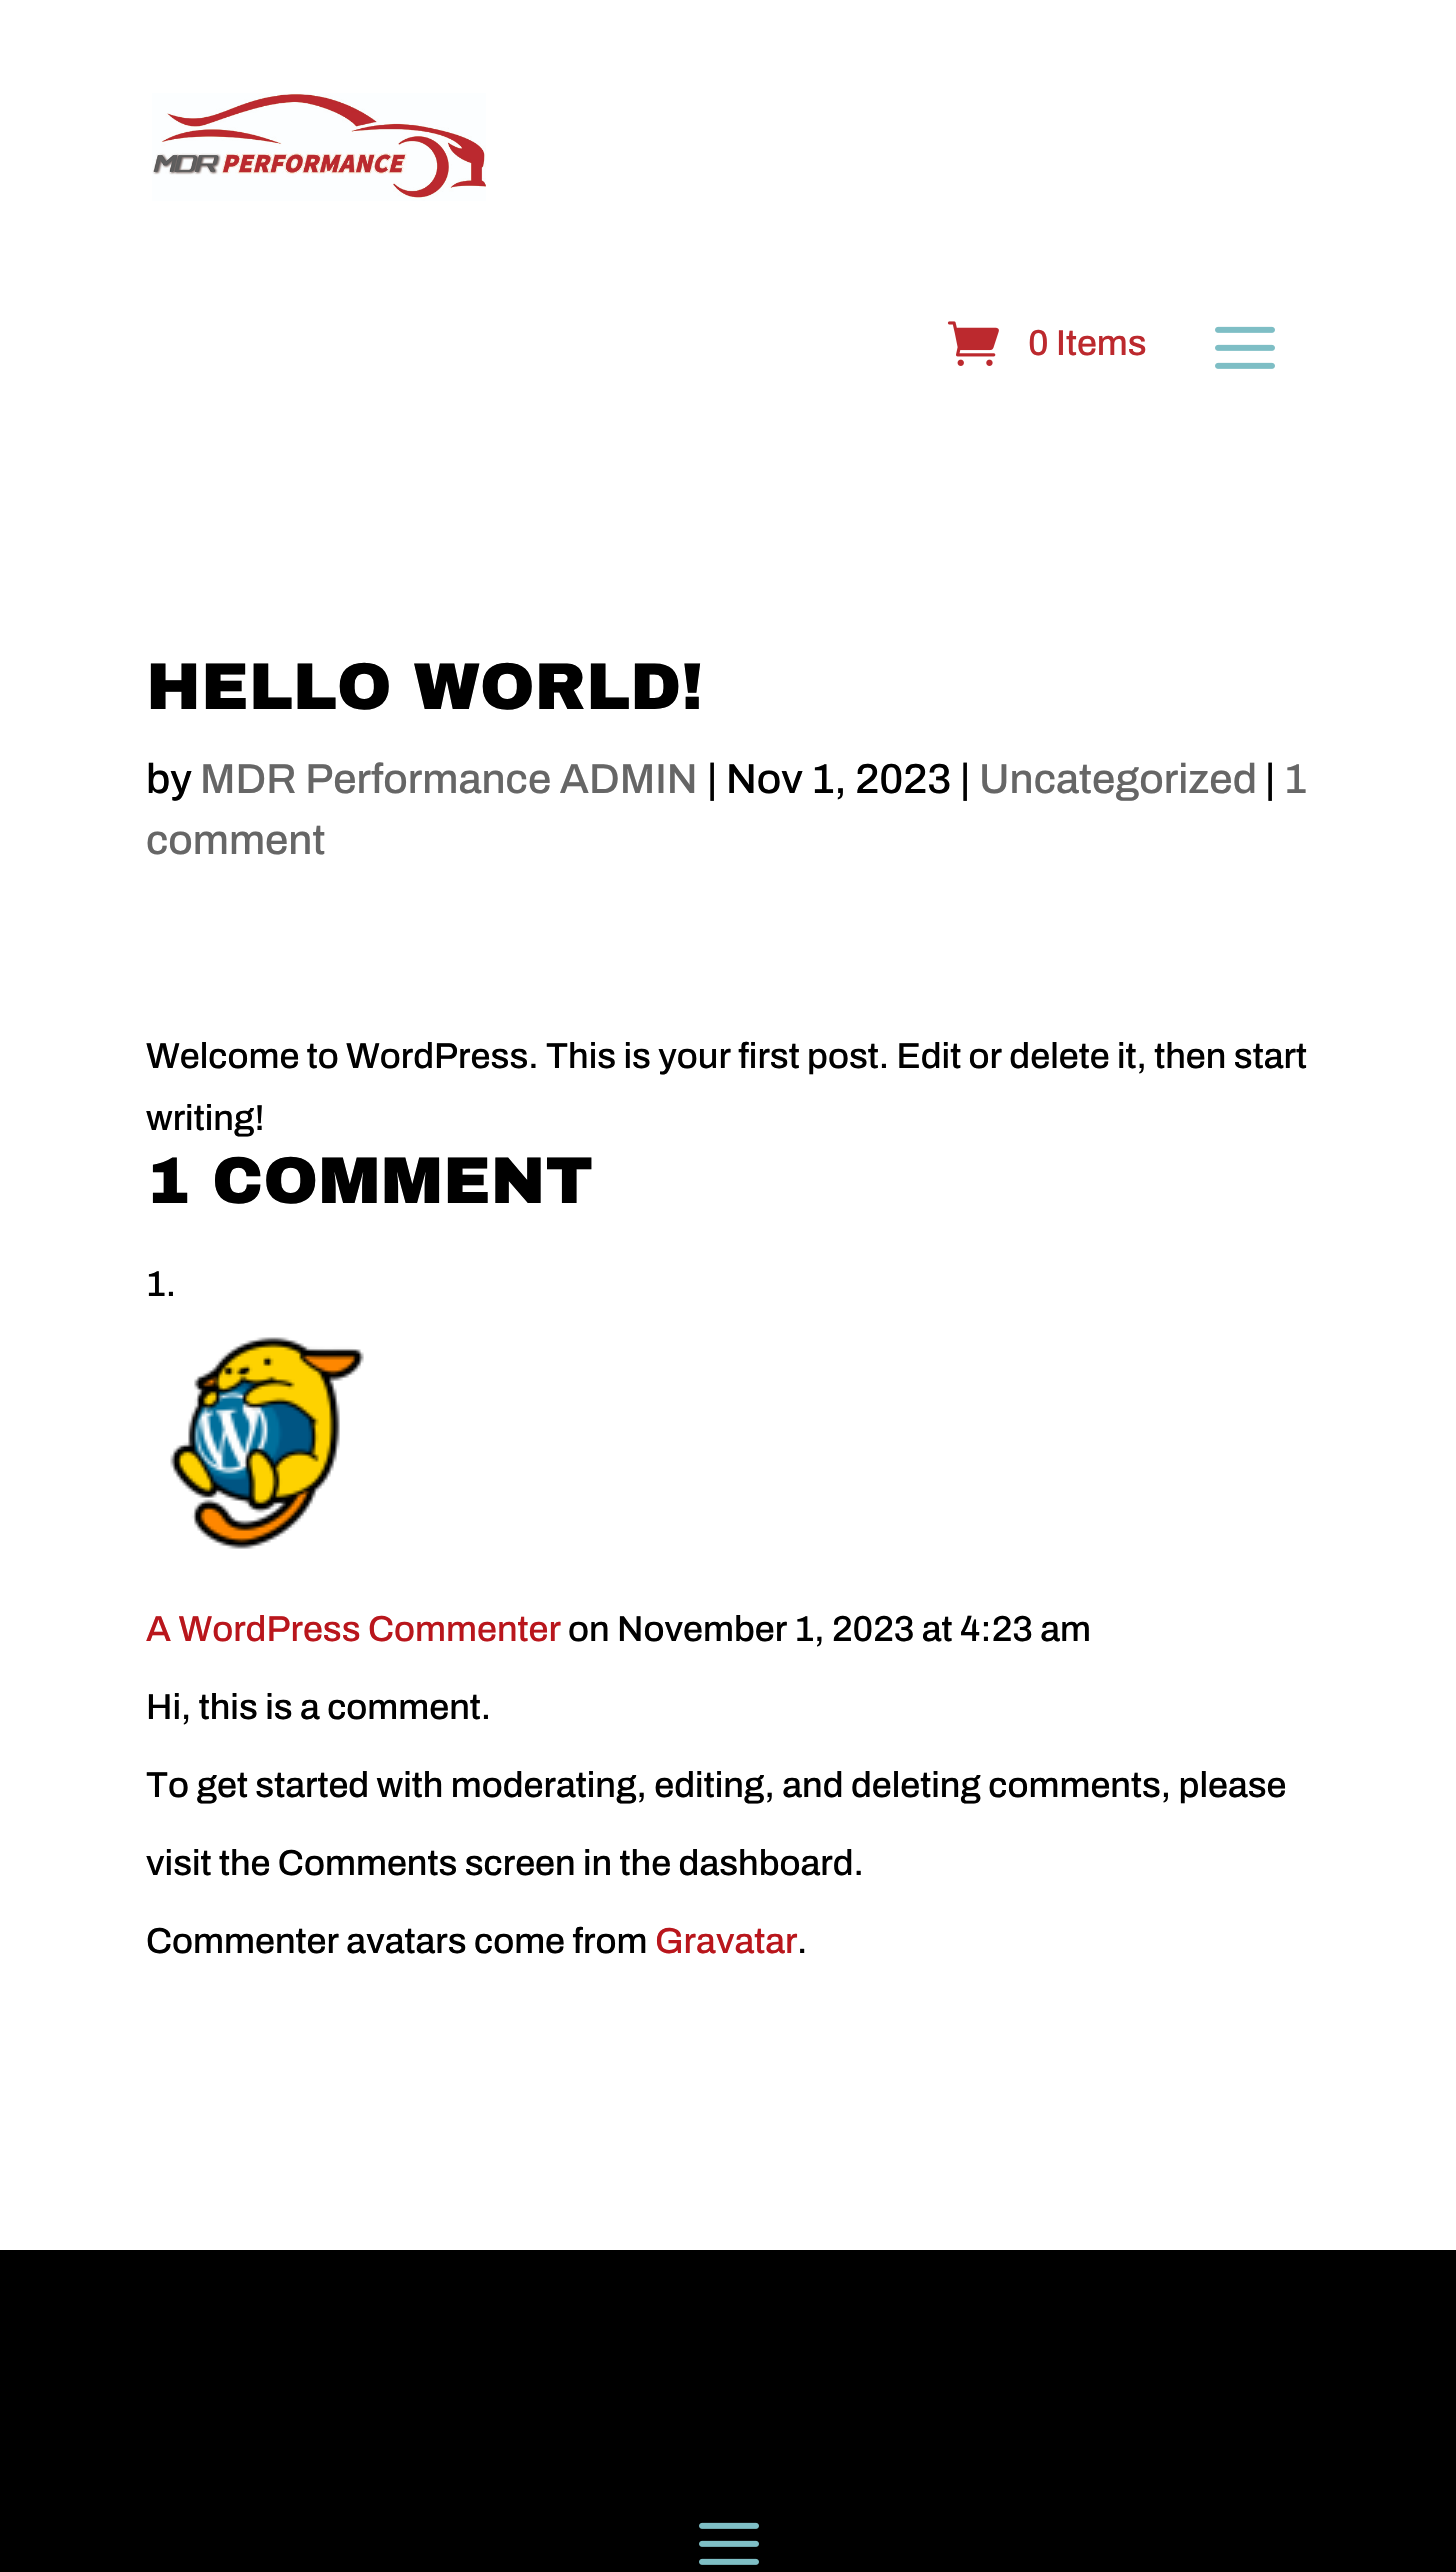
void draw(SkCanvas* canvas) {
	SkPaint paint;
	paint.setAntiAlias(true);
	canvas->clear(0xffffffff);
	canvas->drawImageRect(SkImages::DeferredFromEncodedData(SkData::MakeFromFileName("img1.png")), SkRect::MakeXYWH(152, 93, 334, 108), SkSamplingOptions());
	canvas->drawImageRect(SkImages::DeferredFromEncodedData(SkData::MakeFromFileName("img2.png")), SkRect::MakeXYWH(947, 321, 52, 45), SkSamplingOptions());
	SkFont f1(fontMgr->matchFamilyStyle("Archivo", SkFontStyle(500, SkFontStyle::kNormal_Width, SkFontStyle::kUpright_Slant)), 36);
	f1.setSubpixel(true);
	paint.setColor(0xffbc292e);
	canvas->drawString("0 Items", 1028, 355, f1, paint);
	canvas->drawImageRect(SkImages::DeferredFromEncodedData(SkData::MakeFromFileName("img3.png")), SkRect::MakeXYWH(1215, 326, 60, 43), SkSamplingOptions());
	SkFont f2(fontMgr->matchFamilyStyle("Archivo Black", SkFontStyle(900, SkFontStyle::kNormal_Width, SkFontStyle::kUpright_Slant)), 66);
	f2.setSubpixel(true);
	paint.setColor(0xff000000);
	canvas->drawString("HELLO WORLD!", 146, 709, f2, paint);
	SkFont f3(fontMgr->matchFamilyStyle("Archivo", SkFontStyle(500, SkFontStyle::kNormal_Width, SkFontStyle::kUpright_Slant)), 42);
	f3.setSubpixel(true);
	canvas->drawString("by", 146, 793, f3, paint);
	paint.setColor(0xff666666);
	canvas->drawString("MDR Performance ADMIN", 200, 793, f3, paint);
	paint.setColor(0xff000000);
	canvas->drawString("| Nov 1, 2023 |", 707, 793, f3, paint);
	paint.setColor(0xff666666);
	canvas->drawString("Uncategorized", 979, 793, f3, paint);
	paint.setColor(0xff000000);
	canvas->drawString("|", 1265, 793, f3, paint);
	paint.setColor(0xff666666);
	canvas->drawString("1", 1284, 793, f3, paint);
	canvas->drawString("comment", 146, 854, f3, paint);
	paint.setColor(0xff000000);
	canvas->drawString("Welcome to WordPress. This is your first post. Edit or delete it, then start", 146, 1068, f1, paint);
	canvas->drawString("writing!", 146, 1130, f1, paint);
	canvas->drawString("1 COMMENT", 146, 1203, f2, paint);
	canvas->drawString("1.", 146, 1296, f1, paint);
	canvas->drawImageRect(SkImages::DeferredFromEncodedData(SkData::MakeFromFileName("img4.png")), SkRect::MakeXYWH(170, 1337, 194, 212), SkSamplingOptions());
	paint.setColor(0xffb9161c);
	canvas->drawString("A WordPress Commenter", 146, 1641, f1, paint);
	paint.setColor(0xff000000);
	canvas->drawString("on November 1, 2023 at 4:23 am", 568, 1641, f1, paint);
	canvas->drawString("Hi, this is a comment.", 146, 1719, f1, paint);
	canvas->drawString("To get started with moderating, editing, and deleting comments, please", 146, 1797, f1, paint);
	canvas->drawString("visit the Comments screen in the dashboard.", 146, 1875, f1, paint);
	canvas->drawString("Commenter avatars come from", 146, 1953, f1, paint);
	paint.setColor(0xffb9161c);
	canvas->drawString("Gravatar", 655, 1953, f1, paint);
	paint.setColor(0xff000000);
	canvas->drawString(".", 797, 1953, f1, paint);
	canvas->drawRect(SkRect::MakeXYWH(0, 2250, 1456, 322), paint);
	canvas->drawImageRect(SkImages::DeferredFromEncodedData(SkData::MakeFromFileName("img5.png")), SkRect::MakeXYWH(699, 2522, 60, 43), SkSamplingOptions());
}
